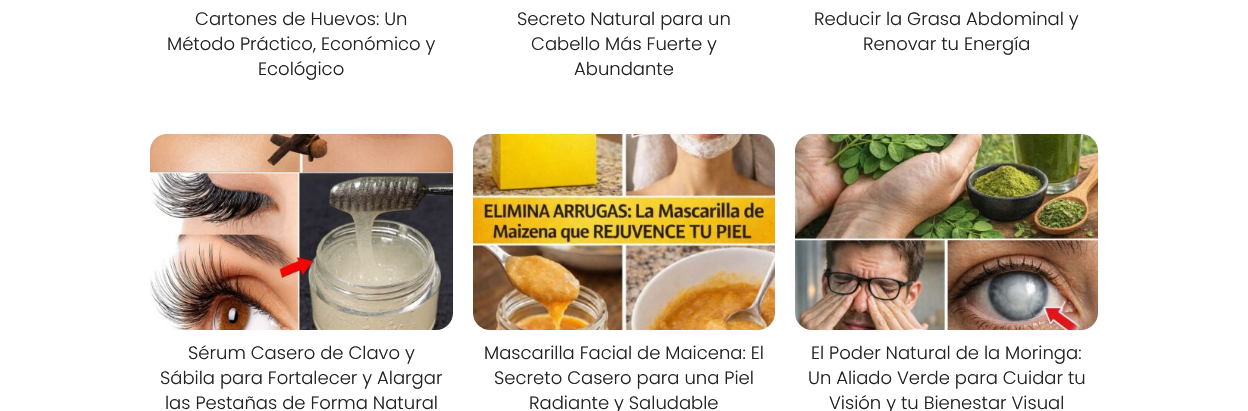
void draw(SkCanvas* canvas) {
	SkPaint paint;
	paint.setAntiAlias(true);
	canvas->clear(0xffffffff);
	SkFont f1(fontMgr->matchFamilyStyle("Poppins", SkFontStyle(300, SkFontStyle::kNormal_Width, SkFontStyle::kUpright_Slant)), 18);
	f1.setSubpixel(true);
	paint.setColor(0xff222222);
	canvas->drawString("Cartones de Huevos: Un", 195, 25, f1, paint);
	canvas->drawString("Método Práctico, Económico y", 167, 50, f1, paint);
	canvas->drawString("Ecológico", 258, 75, f1, paint);
	canvas->drawString("Secreto Natural para un", 517, 25, f1, paint);
	canvas->drawString("Cabello Más Fuerte y", 531, 50, f1, paint);
	canvas->drawString("Abundante", 574, 75, f1, paint);
	canvas->drawString("Reducir la Grasa Abdominal y", 814, 25, f1, paint);
	canvas->drawString("Renovar tu Energía", 863, 50, f1, paint);
	canvas->drawImageRect(SkImages::DeferredFromEncodedData(SkData::MakeFromFileName("img1.png")), SkRect::MakeXYWH(150, 134, 303, 196), SkSamplingOptions());
	canvas->drawString("Sérum Casero de Clavo y", 188, 359, f1, paint);
	canvas->drawString("Sábila para Fortalecer y Alargar", 160, 384, f1, paint);
	canvas->drawString("las Pestañas de Forma Natural", 165, 409, f1, paint);
	canvas->drawImageRect(SkImages::DeferredFromEncodedData(SkData::MakeFromFileName("img2.png")), SkRect::MakeXYWH(473, 134, 302, 196), SkSamplingOptions());
	canvas->drawString("Mascarilla Facial de Maicena: El", 484, 359, f1, paint);
	canvas->drawString("Secreto Casero para una Piel", 494, 384, f1, paint);
	canvas->drawString("Radiante y Saludable", 529, 409, f1, paint);
	canvas->drawImageRect(SkImages::DeferredFromEncodedData(SkData::MakeFromFileName("img3.png")), SkRect::MakeXYWH(795, 134, 303, 196), SkSamplingOptions());
	canvas->drawString("El Poder Natural de la Moringa:", 811, 359, f1, paint);
	canvas->drawString("Un Aliado Verde para Cuidar tu", 808, 384, f1, paint);
	canvas->drawString("Visión y tu Bienestar Visual", 829, 409, f1, paint);
}
